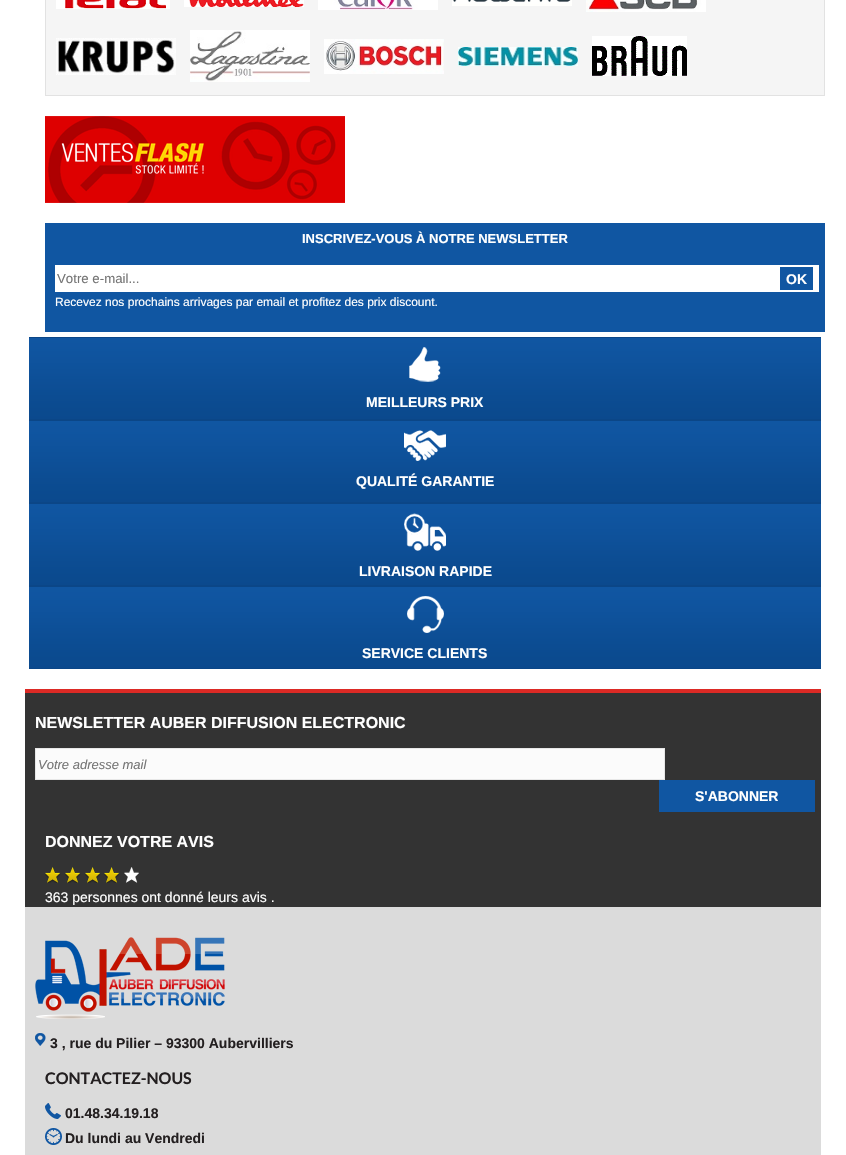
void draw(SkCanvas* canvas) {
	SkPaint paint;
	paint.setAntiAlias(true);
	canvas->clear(0xffffffff);
	paint.setColor(0xfff5f5f5);
	canvas->drawRect(SkRect::MakeXYWH(45.5, -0.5, 779, 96), paint);
	paint.setStroke(true);
	paint.setStrokeWidth(1);
	paint.setColor(0xffe2e2e2);
	canvas->drawRect(SkRect::MakeXYWH(45.5, -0.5, 779, 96), paint);
	canvas->drawImageRect(SkImages::DeferredFromEncodedData(SkData::MakeFromFileName("img1.png")), SkRect::MakeXYWH(56, 0, 114, 9), SkSamplingOptions());
	canvas->drawImageRect(SkImages::DeferredFromEncodedData(SkData::MakeFromFileName("img2.png")), SkRect::MakeXYWH(184, 0, 120, 7), SkSamplingOptions());
	canvas->drawImageRect(SkImages::DeferredFromEncodedData(SkData::MakeFromFileName("img3.png")), SkRect::MakeXYWH(318, 0, 120, 10), SkSamplingOptions());
	canvas->drawImageRect(SkImages::DeferredFromEncodedData(SkData::MakeFromFileName("img4.png")), SkRect::MakeXYWH(452, 0, 120, 6), SkSamplingOptions());
	canvas->drawImageRect(SkImages::DeferredFromEncodedData(SkData::MakeFromFileName("img5.png")), SkRect::MakeXYWH(586, 0, 120, 12), SkSamplingOptions());
	canvas->drawImageRect(SkImages::DeferredFromEncodedData(SkData::MakeFromFileName("img6.png")), SkRect::MakeXYWH(56, 38, 120, 37), SkSamplingOptions());
	canvas->drawImageRect(SkImages::DeferredFromEncodedData(SkData::MakeFromFileName("img7.png")), SkRect::MakeXYWH(190, 30, 120, 52), SkSamplingOptions());
	canvas->drawImageRect(SkImages::DeferredFromEncodedData(SkData::MakeFromFileName("img8.png")), SkRect::MakeXYWH(324, 39, 120, 35), SkSamplingOptions());
	canvas->drawImageRect(SkImages::DeferredFromEncodedData(SkData::MakeFromFileName("img9.png")), SkRect::MakeXYWH(458, 47, 120, 19), SkSamplingOptions());
	canvas->drawImageRect(SkImages::DeferredFromEncodedData(SkData::MakeFromFileName("img10.png")), SkRect::MakeXYWH(592, 36, 95, 40), SkSamplingOptions());
	canvas->drawImageRect(SkImages::DeferredFromEncodedData(SkData::MakeFromFileName("img11.png")), SkRect::MakeXYWH(45, 116, 300, 87), SkSamplingOptions());
	paint.setStroke(false);
	paint.setColor(0xff1056a2);
	canvas->drawRect(SkRect::MakeXYWH(45, 223, 780, 109), paint);
	SkFont f1(fontMgr->matchFamilyStyle("Liberation Sans", SkFontStyle::Bold()), 13);
	f1.setSubpixel(true);
	paint.setColor(0xffffffff);
	canvas->drawString("INSCRIVEZ-VOUS À NOTRE NEWSLETTER", 302, 243, f1, paint);
	canvas->drawRect(SkRect::MakeXYWH(55, 265, 764, 27), paint);
	SkFont f2(fontMgr->matchFamilyStyle("Liberation Sans", SkFontStyle::Normal()), 13.25);
	f2.setSubpixel(true);
	paint.setColor(0xff757575);
	canvas->drawString("Votre e-mail...", 57, 283, f2, paint);
	paint.setColor(0xff1056a2);
	canvas->drawRect(SkRect::MakeXYWH(780, 267, 33, 23), paint);
	SkFont f3(fontMgr->matchFamilyStyle("Liberation Sans", SkFontStyle::Bold()), 14);
	f3.setSubpixel(true);
	paint.setColor(0xffffffff);
	canvas->drawString("OK", 786, 284, f3, paint);
	SkFont f4(fontMgr->matchFamilyStyle("Liberation Sans", SkFontStyle::Normal()), 12);
	f4.setSubpixel(true);
	canvas->drawString("Recevez nos prochains arrivages par email et profitez des prix discount.", 55, 306, f4, paint);
	canvas->drawImageRect(SkImages::DeferredFromEncodedData(SkData::MakeFromFileName("img12.png")), SkRect::MakeXYWH(29, 337, 792, 83), SkSamplingOptions());
	canvas->drawImageRect(SkImages::DeferredFromEncodedData(SkData::MakeFromFileName("img13.png")), SkRect::MakeXYWH(409, 347, 32, 35), SkSamplingOptions());
	canvas->drawString("MEILLEURS PRIX", 366, 407, f3, paint);
	canvas->drawImageRect(SkImages::DeferredFromEncodedData(SkData::MakeFromFileName("img12.png")), SkRect::MakeXYWH(29, 420, 792, 83), SkSamplingOptions());
	canvas->drawImageRect(SkImages::DeferredFromEncodedData(SkData::MakeFromFileName("img14.png")), SkRect::MakeXYWH(404, 430, 42, 31), SkSamplingOptions());
	canvas->drawString("QUALITÉ GARANTIE", 356, 486, f3, paint);
	canvas->drawImageRect(SkImages::DeferredFromEncodedData(SkData::MakeFromFileName("img12.png")), SkRect::MakeXYWH(29, 503, 792, 83), SkSamplingOptions());
	canvas->drawImageRect(SkImages::DeferredFromEncodedData(SkData::MakeFromFileName("img15.png")), SkRect::MakeXYWH(404, 513, 42, 38), SkSamplingOptions());
	canvas->drawString("LIVRAISON RAPIDE", 359, 576, f3, paint);
	canvas->drawImageRect(SkImages::DeferredFromEncodedData(SkData::MakeFromFileName("img12.png")), SkRect::MakeXYWH(29, 586, 792, 83), SkSamplingOptions());
	canvas->drawImageRect(SkImages::DeferredFromEncodedData(SkData::MakeFromFileName("img16.png")), SkRect::MakeXYWH(407, 596, 37, 37), SkSamplingOptions());
	canvas->drawString("SERVICE CLIENTS", 362, 658, f3, paint);
	paint.setColor(0xff333333);
	canvas->drawRect(SkRect::MakeXYWH(25, 693, 796, 214), paint);
	paint.setColor(0xffdc2a25);
	canvas->drawRect(SkRect::MakeXYWH(25, 689, 796, 4), paint);
	SkFont f5(fontMgr->matchFamilyStyle("Liberation Sans", SkFontStyle::Bold()), 16);
	f5.setSubpixel(true);
	paint.setColor(0xffffffff);
	canvas->drawString("NEWSLETTER AUBER DIFFUSION ELECTRONIC", 35, 728, f5, paint);
	paint.setColor(0xfffbfbfb);
	canvas->drawRect(SkRect::MakeXYWH(35.5, 748.5, 629, 31), paint);
	paint.setStroke(true);
	paint.setColor(0xffe7e7e7);
	canvas->drawRect(SkRect::MakeXYWH(35.5, 748.5, 629, 31), paint);
	SkFont f6(fontMgr->matchFamilyStyle("Liberation Sans", SkFontStyle::Italic()), 13);
	f6.setSubpixel(true);
	paint.setStroke(false);
	paint.setColor(0xff757575);
	canvas->drawString("Votre adresse mail", 38, 769, f6, paint);
	paint.setColor(0xff1056a2);
	canvas->drawRect(SkRect::MakeXYWH(659, 780, 156, 32), paint);
	paint.setColor(0xffffffff);
	canvas->drawString("S'ABONNER", 695, 801, f3, paint);
	canvas->drawString("DONNEZ VOTRE AVIS", 45, 847, f5, paint);
	canvas->drawImageRect(SkImages::DeferredFromEncodedData(SkData::MakeFromFileName("img17.png")), SkRect::MakeXYWH(45, 867, 94, 16), SkSamplingOptions());
	SkFont f7(fontMgr->matchFamilyStyle("Liberation Sans", SkFontStyle::Normal()), 14);
	f7.setSubpixel(true);
	canvas->drawString("363 personnes ont donné leurs avis .", 45, 902, f7, paint);
	paint.setColor(0xffdbdbdb);
	canvas->drawRect(SkRect::MakeXYWH(25, 907, 796, 248), paint);
	canvas->drawImageRect(SkImages::DeferredFromEncodedData(SkData::MakeFromFileName("img18.png")), SkRect::MakeXYWH(35, 937, 190, 82), SkSamplingOptions());
	canvas->drawImageRect(SkImages::DeferredFromEncodedData(SkData::MakeFromFileName("img19.png")), SkRect::MakeXYWH(35, 1033, 11, 13), SkSamplingOptions());
	paint.setColor(0xff231f20);
	canvas->drawString("3 , rue du Pilier – 93300 Aubervilliers", 50, 1048, f3, paint);
	SkFont f8(fontMgr->matchFamilyStyle("Lato", SkFontStyle::Bold()), 16);
	f8.setSubpixel(true);
	canvas->drawString("CONTACTEZ-NOUS", 45, 1084, f8, paint);
	canvas->drawImageRect(SkImages::DeferredFromEncodedData(SkData::MakeFromFileName("img20.png")), SkRect::MakeXYWH(45, 1103, 16, 16), SkSamplingOptions());
	canvas->drawString("01.48.34.19.18", 65, 1118, f3, paint);
	canvas->drawImageRect(SkImages::DeferredFromEncodedData(SkData::MakeFromFileName("img21.png")), SkRect::MakeXYWH(45, 1128, 17, 17), SkSamplingOptions());
	canvas->drawString("Du lundi au Vendredi", 65, 1143, f3, paint);
}
